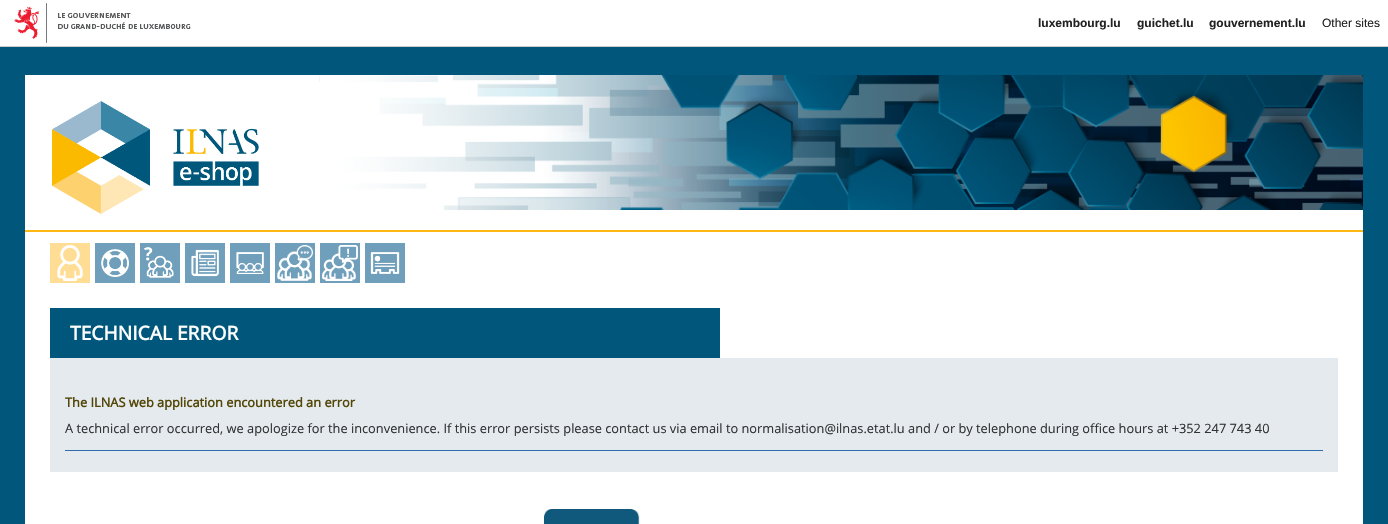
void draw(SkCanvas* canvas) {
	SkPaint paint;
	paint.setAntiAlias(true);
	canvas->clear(0xff00577b);
	paint.setColor(0xffffffff);
	canvas->drawRect(SkRect::MakeXYWH(0, 0, 1388, 46), paint);
	paint.setColor(0xffcccaca);
	canvas->drawRect(SkRect::MakeXYWH(0, 46, 1388, 1), paint);
	canvas->drawImageRect(SkImages::DeferredFromEncodedData(SkData::MakeFromFileName("img1.png")), SkRect::MakeXYWH(14, 3, 177, 40), SkSamplingOptions());
	SkFont f1(fontMgr->matchFamilyStyle("Liberation Sans", SkFontStyle::Bold()), 12);
	f1.setSubpixel(true);
	paint.setColor(0xff222222);
	canvas->drawString("luxembourg.lu", 1038, 27, f1, paint);
	canvas->drawString("guichet.lu", 1137, 27, f1, paint);
	canvas->drawString("gouvernement.lu", 1209, 27, f1, paint);
	SkFont f2(fontMgr->matchFamilyStyle("Liberation Sans", SkFontStyle::Normal()), 12);
	f2.setSubpixel(true);
	canvas->drawString("Other sites", 1322, 27, f2, paint);
	paint.setColor(0xffffffff);
	canvas->drawRect(SkRect::MakeXYWH(25, 75, 1338, 449), paint);
	canvas->drawImageRect(SkImages::DeferredFromEncodedData(SkData::MakeFromFileName("img2.png")), SkRect::MakeXYWH(319, 75, 1044, 135), SkSamplingOptions());
	canvas->drawImageRect(SkImages::DeferredFromEncodedData(SkData::MakeFromFileName("img3.png")), SkRect::MakeXYWH(52, 101, 207, 113), SkSamplingOptions());
	paint.setColor(0xfffdb813);
	canvas->drawRect(SkRect::MakeXYWH(25, 230, 1338, 2), paint);
	paint.setColor(0xffffdd94);
	canvas->drawRect(SkRect::MakeXYWH(50, 243, 40, 40), paint);
	canvas->drawImageRect(SkImages::DeferredFromEncodedData(SkData::MakeFromFileName("img4.png")), SkRect::MakeXYWH(57, 245, 26, 36), SkSamplingOptions());
	paint.setColor(0xff709fbb);
	canvas->drawRect(SkRect::MakeXYWH(95, 243, 40, 40), paint);
	canvas->drawImageRect(SkImages::DeferredFromEncodedData(SkData::MakeFromFileName("img5.png")), SkRect::MakeXYWH(101, 249, 28, 28), SkSamplingOptions());
	canvas->drawRect(SkRect::MakeXYWH(140, 243, 40, 40), paint);
	canvas->drawImageRect(SkImages::DeferredFromEncodedData(SkData::MakeFromFileName("img6.png")), SkRect::MakeXYWH(144, 247, 30, 31), SkSamplingOptions());
	canvas->drawRect(SkRect::MakeXYWH(185, 243, 40, 40), paint);
	canvas->drawImageRect(SkImages::DeferredFromEncodedData(SkData::MakeFromFileName("img7.png")), SkRect::MakeXYWH(191, 249, 28, 28), SkSamplingOptions());
	canvas->drawRect(SkRect::MakeXYWH(230, 243, 40, 40), paint);
	canvas->drawImageRect(SkImages::DeferredFromEncodedData(SkData::MakeFromFileName("img8.png")), SkRect::MakeXYWH(236, 252, 28, 22), SkSamplingOptions());
	canvas->drawRect(SkRect::MakeXYWH(275, 243, 40, 40), paint);
	canvas->drawImageRect(SkImages::DeferredFromEncodedData(SkData::MakeFromFileName("img9.png")), SkRect::MakeXYWH(277, 245, 36, 36), SkSamplingOptions());
	canvas->drawRect(SkRect::MakeXYWH(320, 243, 40, 40), paint);
	canvas->drawImageRect(SkImages::DeferredFromEncodedData(SkData::MakeFromFileName("img10.png")), SkRect::MakeXYWH(322, 245, 36, 36), SkSamplingOptions());
	canvas->drawRect(SkRect::MakeXYWH(365, 243, 40, 40), paint);
	canvas->drawImageRect(SkImages::DeferredFromEncodedData(SkData::MakeFromFileName("img11.png")), SkRect::MakeXYWH(370, 252, 30, 22), SkSamplingOptions());
	paint.setColor(0xff00577b);
	canvas->drawRect(SkRect::MakeXYWH(50, 308, 670, 50), paint);
	SkFont f3(fontMgr->matchFamilyStyle("Open Sans", SkFontStyle::Bold()), 19.25);
	f3.setSubpixel(true);
	paint.setColor(0xffffffff);
	canvas->drawString("TECHNICAL ERROR", 70, 340, f3, paint);
	paint.setColor(0xffe4eaee);
	canvas->drawRect(SkRect::MakeXYWH(50, 358, 1288, 114), paint);
	SkFont f4(fontMgr->matchFamilyStyle("Open Sans", SkFontStyle::Bold()), 12.8);
	f4.setSubpixel(true);
	paint.setColor(0xff534607);
	canvas->drawString("The ILNAS web application encountered an error", 65, 407, f4, paint);
	SkFont f5(fontMgr->matchFamilyStyle("Open Sans", SkFontStyle::Normal()), 12.8);
	f5.setSubpixel(true);
	paint.setColor(0xff333333);
	canvas->drawString("A technical error occurred, we apologize for the inconvenience. If this error persists please contact us via email to normalisation@ilnas.etat.lu and / or by telephone during office hours at +352 247 743 40", 65, 433, f5, paint);
	paint.setColor(0xff2f6eac);
	canvas->drawRect(SkRect::MakeXYWH(65, 450, 1258, 1), paint);
	canvas->drawImageRect(SkImages::DeferredFromEncodedData(SkData::MakeFromFileName("img12.png")), SkRect::MakeXYWH(544, 509, 96, 15), SkSamplingOptions());
}
